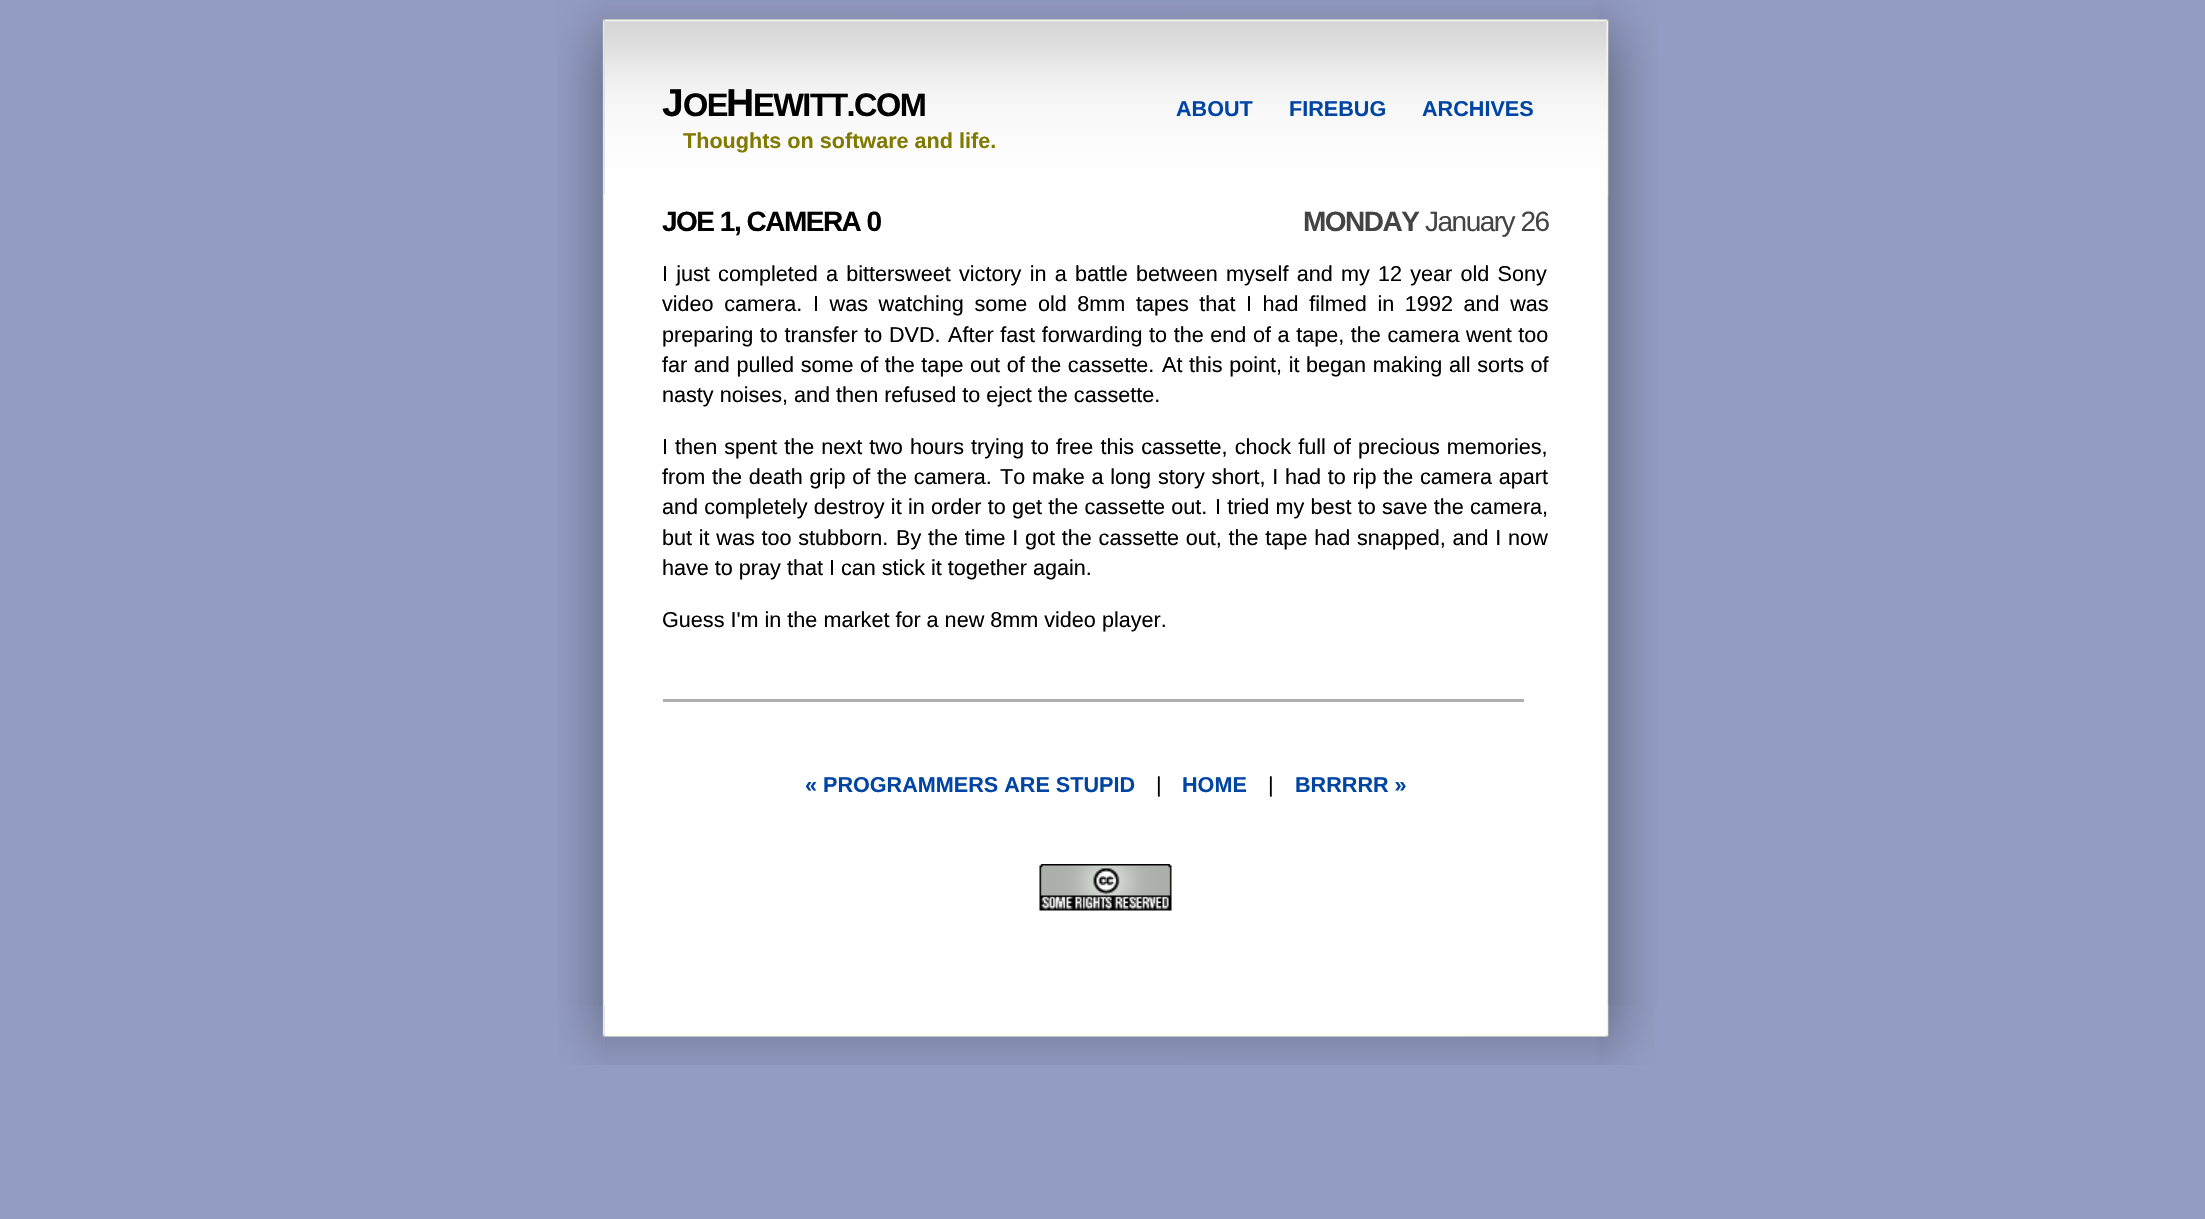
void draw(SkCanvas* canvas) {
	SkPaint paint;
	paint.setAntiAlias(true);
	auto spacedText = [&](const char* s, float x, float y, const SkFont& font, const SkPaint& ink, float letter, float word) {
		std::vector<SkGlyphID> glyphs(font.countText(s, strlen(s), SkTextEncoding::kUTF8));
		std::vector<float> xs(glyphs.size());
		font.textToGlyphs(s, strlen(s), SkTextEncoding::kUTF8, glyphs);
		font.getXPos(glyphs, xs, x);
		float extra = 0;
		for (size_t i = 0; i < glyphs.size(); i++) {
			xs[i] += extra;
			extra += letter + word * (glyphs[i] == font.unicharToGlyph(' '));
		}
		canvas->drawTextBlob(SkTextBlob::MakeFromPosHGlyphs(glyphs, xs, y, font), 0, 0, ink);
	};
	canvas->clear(0xff939dc3);
	canvas->drawImageRect(SkImages::DeferredFromEncodedData(SkData::MakeFromFileName("img1.png")), SkRect::MakeXYWH(604, 0, 1053, 195), SkSamplingOptions());
	canvas->drawImageRect(SkImages::DeferredFromEncodedData(SkData::MakeFromFileName("img2.png")), SkRect::MakeXYWH(557, 0, 48, 195), SkSamplingOptions());
	canvas->drawImageRect(SkImages::DeferredFromEncodedData(SkData::MakeFromFileName("img3.png")), SkRect::MakeXYWH(557, 195, 48, 810), SkSamplingOptions());
	canvas->drawImageRect(SkImages::DeferredFromEncodedData(SkData::MakeFromFileName("img4.png")), SkRect::MakeXYWH(1599, 195, 58, 810), SkSamplingOptions());
	paint.setColor(0xffffffff);
	canvas->drawRect(SkRect::MakeXYWH(605, 195, 994, 810), paint);
	SkFont f1(fontMgr->matchFamilyStyle("Liberation Sans", SkFontStyle::Bold()), 39);
	f1.setSubpixel(true);
	paint.setColor(0xff000000);
	spacedText("J", 662, 116, f1, paint, -1.5, 0);
	SkFont f2(fontMgr->matchFamilyStyle("Liberation Sans", SkFontStyle::Bold()), 32.5);
	f2.setSubpixel(true);
	spacedText("OE", 683, 116, f2, paint, -1.5, 0);
	spacedText("H", 726, 116, f1, paint, -1.5, 0);
	spacedText("EWITT.COM", 753, 116, f2, paint, -1.5, 0);
	SkFont f3(fontMgr->matchFamilyStyle("Liberation Sans", SkFontStyle::Bold()), 21.6);
	f3.setSubpixel(true);
	paint.setColor(0xff0045a3);
	canvas->drawString("ABOUT", 1176, 116, f3, paint);
	canvas->drawString("FIREBUG", 1289, 116, f3, paint);
	canvas->drawString("ARCHIVES", 1422, 116, f3, paint);
	paint.setColor(0xff817a00);
	canvas->drawString("Thoughts on software and life.", 683, 148, f3, paint);
	SkFont f4(fontMgr->matchFamilyStyle("Liberation Sans", SkFontStyle::Bold()), 28);
	f4.setSubpixel(true);
	paint.setColor(0xff000000);
	spacedText("JOE 1, CAMERA 0", 662, 231, f4, paint, -1.5, 0);
	paint.setColor(0xff444444);
	spacedText("MONDAY", 1303, 231, f4, paint, -1.5, 0);
	SkFont f5(fontMgr->matchFamilyStyle("Liberation Sans", SkFontStyle::Normal()), 28);
	f5.setSubpixel(true);
	spacedText("January 26", 1425, 231, f5, paint, -1.5, 0);
	SkFont f6(fontMgr->matchFamilyStyle("Liberation Sans", SkFontStyle::Normal()), 21.6);
	f6.setSubpixel(true);
	paint.setColor(0xff000000);
	spacedText("I just completed a bittersweet victory in a battle between myself and my 12 year old Sony", 662, 281, f6, paint, 0, 2.25);
	spacedText("video camera.", 662, 311, f6, paint, 0, 4.6);
	spacedText("I was watching some old 8mm tapes that I had filmed in 1992 and was", 813, 311, f6, paint, 0, 4.6);
	spacedText("preparing to transfer to DVD.", 662, 342, f6, paint, 0, 0.6);
	spacedText("After fast forwarding to the end of a tape, the camera went too", 948, 342, f6, paint, 0, 0.6);
	spacedText("far and pulled some of the tape out of the cassette.", 662, 372, f6, paint, 0, 0.6);
	spacedText("At this point, it began making all sorts of", 1162, 372, f6, paint, 0, 0.6);
	canvas->drawString("nasty noises, and then refused to eject the cassette.", 662, 402, f6, paint);
	spacedText("I then spent the next two hours trying to free this cassette, chock full of precious memories,", 662, 454, f6, paint, 0, 1.1);
	spacedText("from the death grip of the camera.", 662, 484, f6, paint, 0, 0.75);
	spacedText("To make a long story short, I had to rip the camera apart", 1000, 484, f6, paint, 0, 0.75);
	spacedText("and completely destroy it in order to get the cassette out.", 662, 514, f6, paint, 0, 0.25);
	spacedText("I tried my best to save the camera,", 1215, 514, f6, paint, 0, 0.25);
	spacedText("but it was too stubborn.", 662, 545, f6, paint, 0, 0.75);
	spacedText("By the time I got the cassette out, the tape had snapped, and I now", 896, 545, f6, paint, 0, 0.75);
	canvas->drawString("have to pray that I can stick it together again.", 662, 575, f6, paint);
	canvas->drawString("Guess I'm in the market for a new 8mm video player.", 662, 627, f6, paint);
	paint.setColor(0xffafafaf);
	canvas->drawRect(SkRect::MakeXYWH(663, 699, 861, 3), paint);
	paint.setColor(0xff0045a3);
	canvas->drawString("« PROGRAMMERS ARE STUPID", 805, 792, f3, paint);
	paint.setColor(0xff000000);
	canvas->drawString("|", 1156, 792, f6, paint);
	paint.setColor(0xff0045a3);
	canvas->drawString("HOME", 1182, 792, f3, paint);
	paint.setColor(0xff000000);
	canvas->drawString("|", 1268, 792, f6, paint);
	paint.setColor(0xff0045a3);
	canvas->drawString("BRRRRR »", 1295, 792, f3, paint);
	canvas->drawImageRect(SkImages::DeferredFromEncodedData(SkData::MakeFromFileName("img5.png")), SkRect::MakeXYWH(1039, 864, 133, 47), SkSamplingOptions());
	canvas->drawImageRect(SkImages::DeferredFromEncodedData(SkData::MakeFromFileName("img6.png")), SkRect::MakeXYWH(604, 1005, 1051, 60), SkSamplingOptions());
	canvas->drawImageRect(SkImages::DeferredFromEncodedData(SkData::MakeFromFileName("img7.png")), SkRect::MakeXYWH(559, 1005, 46, 60), SkSamplingOptions());
}
